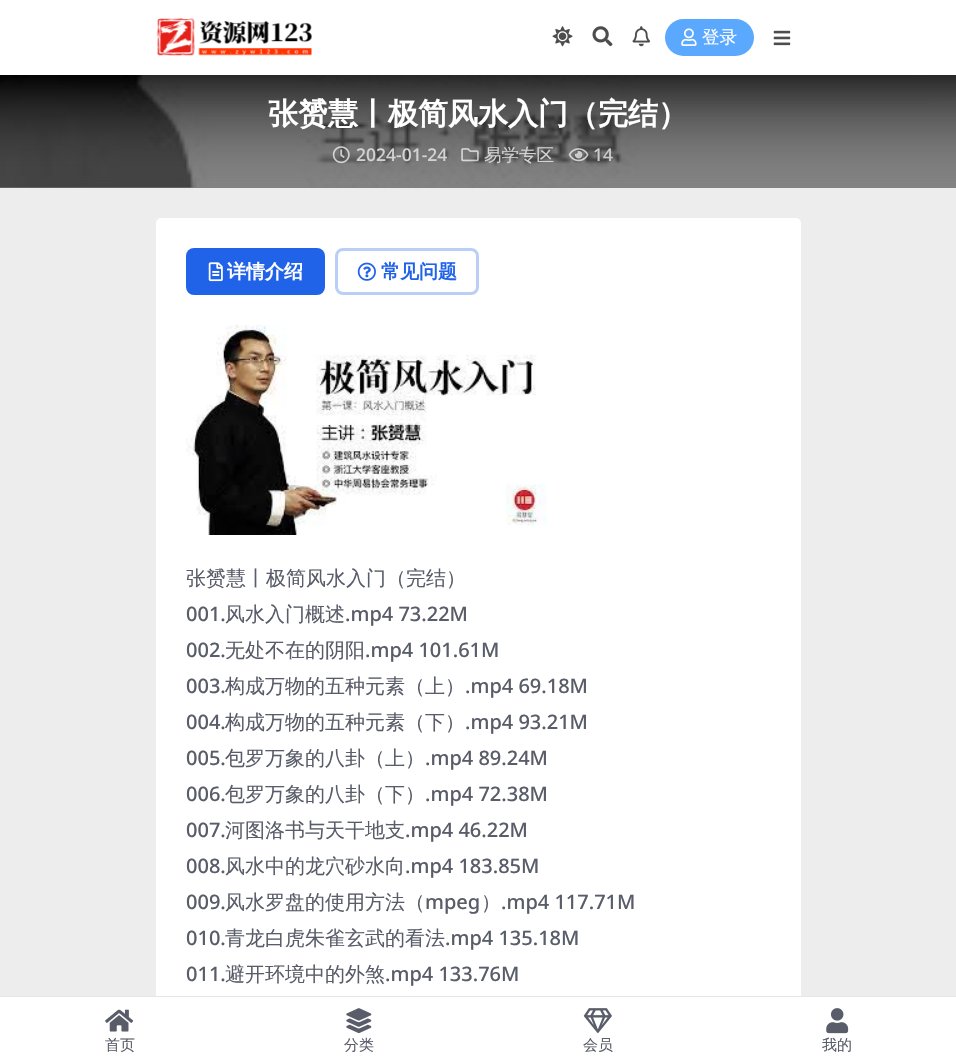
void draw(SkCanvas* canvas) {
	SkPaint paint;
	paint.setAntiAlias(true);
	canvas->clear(0xffededed);
	paint.setColor(0xff535353);
	canvas->drawRect(SkRect::MakeXYWH(0, 187, 956, 1), paint);
	canvas->drawImageRect(SkImages::DeferredFromEncodedData(SkData::MakeFromFileName("img7.png")), SkRect::MakeXYWH(0, 75, 956, 113), SkSamplingOptions());
	{
		const SkColor colors[] = {0x8c000000, 0x40ffffff};
		const float stops[] = {0, 1};
		const SkPoint ends[] = {{478, 75}, {478, 188}};
		paint.setShader(SkGradientShader::MakeLinear(ends, colors, stops, 2, SkTileMode::kClamp));
		paint.setAlpha(255);
	}
	canvas->drawRect(SkRect::MakeXYWH(0, 75, 956, 113), paint);
	paint.setShader(nullptr);
	paint.setColor(0x12000000);
	paint.setMaskFilter(SkMaskFilter::MakeBlur(kNormal_SkBlurStyle, 19));
	canvas->drawRect(SkRect::MakeXYWH(0, 0, 956, 75), paint);
	paint.setMaskFilter(nullptr);
	paint.setColor(0xffffffff);
	canvas->drawRect(SkRect::MakeXYWH(0, 0, 956, 75), paint);
	canvas->drawImageRect(SkImages::DeferredFromEncodedData(SkData::MakeFromFileName("img1.png")), SkRect::MakeXYWH(156, 18, 156, 38), SkSamplingOptions());
	canvas->drawImageRect(SkImages::DeferredFromEncodedData(SkData::MakeFromFileName("img2.png")), SkRect::MakeXYWH(552, 26, 21, 21), SkSamplingOptions());
	canvas->drawImageRect(SkImages::DeferredFromEncodedData(SkData::MakeFromFileName("img3.png")), SkRect::MakeXYWH(592, 26, 21, 21), SkSamplingOptions());
	canvas->drawImageRect(SkImages::DeferredFromEncodedData(SkData::MakeFromFileName("img4.png")), SkRect::MakeXYWH(632, 26, 18, 21), SkSamplingOptions());
	paint.setColor(0xff5ba8ff);
	canvas->drawRoundRect(SkRect::MakeXYWH(665, 19, 89, 37), 18.5, 18.5, paint);
	canvas->drawImageRect(SkImages::DeferredFromEncodedData(SkData::MakeFromFileName("img5.png")), SkRect::MakeXYWH(681, 28, 16, 18), SkSamplingOptions());
	SkFont f1(fontMgr->matchFamilyStyle("WenQuanYi Zen Hei", SkFontStyle(500, SkFontStyle::kNormal_Width, SkFontStyle::kUpright_Slant)), 17.5);
	f1.setSubpixel(true);
	paint.setColor(0xffffffff);
	canvas->drawString("登录", 702, 43, f1, paint);
	canvas->drawImageRect(SkImages::DeferredFromEncodedData(SkData::MakeFromFileName("img6.png")), SkRect::MakeXYWH(773, 30, 18, 16), SkSamplingOptions());
	SkFont f2(fontMgr->matchFamilyStyle("WenQuanYi Zen Hei", SkFontStyle::Bold()), 30);
	f2.setSubpixel(true);
	canvas->drawString("张赟慧丨极简风水入门（完结）", 268, 124, f2, paint);
	canvas->drawImageRect(SkImages::DeferredFromEncodedData(SkData::MakeFromFileName("img8.png")), SkRect::MakeXYWH(332, 146, 18, 18), SkSamplingOptions());
	SkFont f3(fontMgr->matchFamilyStyle("Noto Sans", SkFontStyle(500, SkFontStyle::kNormal_Width, SkFontStyle::kUpright_Slant)), 17.5);
	f3.setSubpixel(true);
	paint.setColor(0xffd3d3d3);
	canvas->drawString("2024-01-24", 356, 161, f3, paint);
	canvas->drawImageRect(SkImages::DeferredFromEncodedData(SkData::MakeFromFileName("img9.png")), SkRect::MakeXYWH(461, 148, 18, 14), SkSamplingOptions());
	canvas->drawString("易学专区", 484, 161, f1, paint);
	canvas->drawImageRect(SkImages::DeferredFromEncodedData(SkData::MakeFromFileName("img10.png")), SkRect::MakeXYWH(568, 148, 21, 14), SkSamplingOptions());
	paint.setColor(0xffcccccc);
	canvas->drawString("14", 593, 161, f3, paint);
	paint.setColor(0xffffffff);
	canvas->drawRoundRect(SkRect::MakeXYWH(156, 218, 645, 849), 5, 5, paint);
	paint.setColor(0xff2163e8);
	canvas->drawRoundRect(SkRect::MakeXYWH(186, 248, 139, 47), 8, 8, paint);
	canvas->drawImageRect(SkImages::DeferredFromEncodedData(SkData::MakeFromFileName("img11.png")), SkRect::MakeXYWH(208, 262, 15, 20), SkSamplingOptions());
	SkFont f4(fontMgr->matchFamilyStyle("WenQuanYi Zen Hei", SkFontStyle::Bold()), 19);
	f4.setSubpixel(true);
	paint.setColor(0xffffffff);
	canvas->drawString("详情介绍", 227, 278, f4, paint);
	paint.setStroke(true);
	paint.setStrokeWidth(3);
	paint.setColor(0xffbacff8);
	canvas->drawRoundRect(SkRect::MakeXYWH(336.5, 249.5, 141, 44), 6.5, 6.5, paint);
	canvas->drawImageRect(SkImages::DeferredFromEncodedData(SkData::MakeFromFileName("img12.png")), SkRect::MakeXYWH(357, 262, 19, 19), SkSamplingOptions());
	paint.setStroke(false);
	paint.setColor(0xff2163e8);
	canvas->drawString("常见问题", 381, 278, f4, paint);
	canvas->drawImageRect(SkImages::DeferredFromEncodedData(SkData::MakeFromFileName("img13.png")), SkRect::MakeXYWH(186, 325, 361, 210), SkSamplingOptions());
	SkFont f5(fontMgr->matchFamilyStyle("WenQuanYi Zen Hei", SkFontStyle(500, SkFontStyle::kNormal_Width, SkFontStyle::kUpright_Slant)), 20);
	f5.setSubpixel(true);
	paint.setColor(0xff595d69);
	canvas->drawString("张赟慧丨极简风水入门（完结）", 186, 585, f5, paint);
	SkFont f6(fontMgr->matchFamilyStyle("Noto Sans", SkFontStyle(500, SkFontStyle::kNormal_Width, SkFontStyle::kUpright_Slant)), 20);
	f6.setSubpixel(true);
	canvas->drawString("001.", 186, 621, f6, paint);
	canvas->drawString("风水入门概述", 225, 621, f5, paint);
	canvas->drawString(".mp4 73.22M", 345, 621, f6, paint);
	canvas->drawString("002.", 186, 657, f6, paint);
	canvas->drawString("无处不在的阴阳", 225, 657, f5, paint);
	canvas->drawString(".mp4 101.61M", 365, 657, f6, paint);
	canvas->drawString("003.", 186, 693, f6, paint);
	canvas->drawString("构成万物的五种元素（上）", 225, 693, f5, paint);
	canvas->drawString(".mp4 69.18M", 465, 693, f6, paint);
	canvas->drawString("004.", 186, 729, f6, paint);
	canvas->drawString("构成万物的五种元素（下）", 225, 729, f5, paint);
	canvas->drawString(".mp4 93.21M", 465, 729, f6, paint);
	canvas->drawString("005.", 186, 765, f6, paint);
	canvas->drawString("包罗万象的八卦（上）", 225, 765, f5, paint);
	canvas->drawString(".mp4 89.24M", 425, 765, f6, paint);
	canvas->drawString("006.", 186, 801, f6, paint);
	canvas->drawString("包罗万象的八卦（下）", 225, 801, f5, paint);
	canvas->drawString(".mp4 72.38M", 425, 801, f6, paint);
	canvas->drawString("007.", 186, 837, f6, paint);
	canvas->drawString("河图洛书与天干地支", 225, 837, f5, paint);
	canvas->drawString(".mp4 46.22M", 405, 837, f6, paint);
	canvas->drawString("008.", 186, 873, f6, paint);
	canvas->drawString("风水中的龙穴砂水向", 225, 873, f5, paint);
	canvas->drawString(".mp4 183.85M", 405, 873, f6, paint);
	canvas->drawString("009.", 186, 909, f6, paint);
	canvas->drawString("风水罗盘的使用方法（", 225, 909, f5, paint);
	canvas->drawString("mpeg", 425, 909, f6, paint);
	canvas->drawString("）", 481, 909, f5, paint);
	canvas->drawString(".mp4 117.71M", 501, 909, f6, paint);
	canvas->drawString("010.", 186, 945, f6, paint);
	canvas->drawString("青龙白虎朱雀玄武的看法", 225, 945, f5, paint);
	canvas->drawString(".mp4 135.18M", 445, 945, f6, paint);
	canvas->drawString("011.", 186, 981, f6, paint);
	canvas->drawString("避开环境中的外煞", 225, 981, f5, paint);
	canvas->drawString(".mp4 133.76M", 385, 981, f6, paint);
	paint.setColor(0xffffffff);
	canvas->drawRect(SkRect::MakeXYWH(0, 996, 956, 66), paint);
	paint.setColor(0xffe6e6e6);
	canvas->drawRoundRect(SkRect::MakeXYWH(0, 996, 956, 1), 0.5, 0.5, paint);
	canvas->drawImageRect(SkImages::DeferredFromEncodedData(SkData::MakeFromFileName("img14.png")), SkRect::MakeXYWH(105, 1009, 29, 23), SkSamplingOptions());
	SkFont f7(fontMgr->matchFamilyStyle("WenQuanYi Zen Hei", SkFontStyle(500, SkFontStyle::kNormal_Width, SkFontStyle::kUpright_Slant)), 15);
	f7.setSubpixel(true);
	paint.setColor(0xff595d69);
	canvas->drawString("首页", 105, 1050, f7, paint);
	canvas->drawImageRect(SkImages::DeferredFromEncodedData(SkData::MakeFromFileName("img15.png")), SkRect::MakeXYWH(346, 1008, 26, 26), SkSamplingOptions());
	canvas->drawString("分类", 344, 1050, f7, paint);
	canvas->drawImageRect(SkImages::DeferredFromEncodedData(SkData::MakeFromFileName("img16.png")), SkRect::MakeXYWH(583, 1008, 29, 26), SkSamplingOptions());
	canvas->drawString("会员", 583, 1050, f7, paint);
	canvas->drawImageRect(SkImages::DeferredFromEncodedData(SkData::MakeFromFileName("img17.png")), SkRect::MakeXYWH(826, 1008, 23, 26), SkSamplingOptions());
	canvas->drawString("我的", 822, 1050, f7, paint);
}
